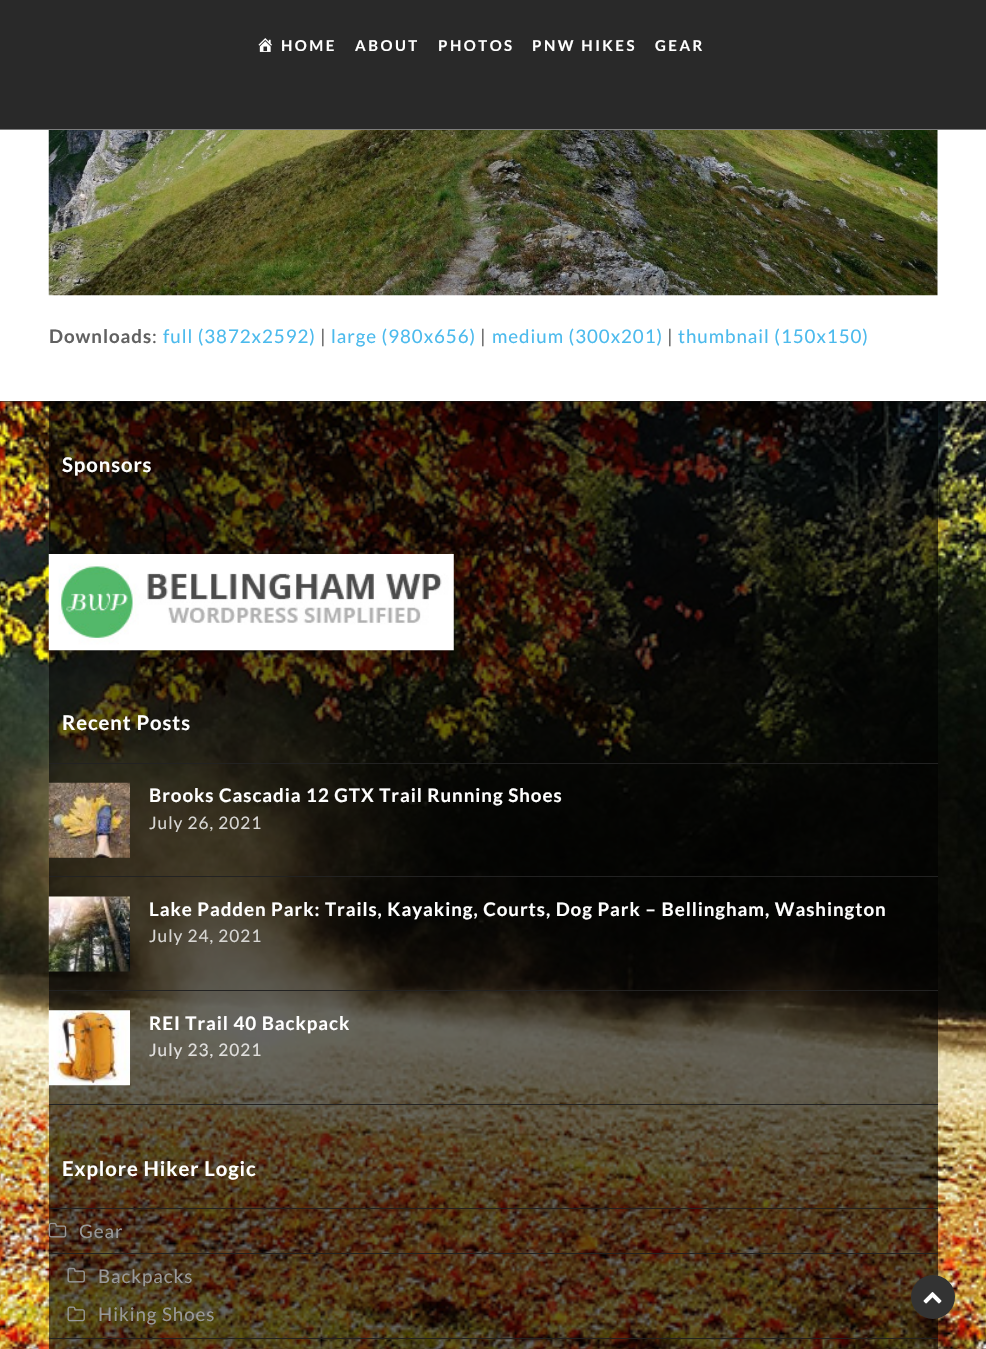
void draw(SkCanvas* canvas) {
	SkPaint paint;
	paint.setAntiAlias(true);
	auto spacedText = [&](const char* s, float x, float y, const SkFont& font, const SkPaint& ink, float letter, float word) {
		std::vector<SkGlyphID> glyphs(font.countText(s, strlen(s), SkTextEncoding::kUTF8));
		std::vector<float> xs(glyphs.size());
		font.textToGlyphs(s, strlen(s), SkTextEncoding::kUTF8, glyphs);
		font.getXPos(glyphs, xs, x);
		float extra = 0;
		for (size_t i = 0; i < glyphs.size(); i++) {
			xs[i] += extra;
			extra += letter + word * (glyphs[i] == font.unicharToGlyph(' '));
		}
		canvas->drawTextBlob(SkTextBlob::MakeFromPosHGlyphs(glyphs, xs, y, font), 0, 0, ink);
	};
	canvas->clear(0xffffffff);
	paint.setColor(0xff292929);
	canvas->drawRect(SkRect::MakeXYWH(0, 0, 986, 129), paint);
	paint.setColor(0xff7c7c7c);
	canvas->drawRect(SkRect::MakeXYWH(0, 129, 986, 1), paint);
	canvas->drawImageRect(SkImages::DeferredFromEncodedData(SkData::MakeFromFileName("img1.png")), SkRect::MakeXYWH(258, 38, 14, 14), SkSamplingOptions());
	SkFont f1(fontMgr->matchFamilyStyle("Lato", SkFontStyle::Bold()), 15);
	f1.setSubpixel(true);
	paint.setColor(0xffffffff);
	spacedText("HOME", 281, 51, f1, paint, 2.5, 0);
	spacedText("ABOUT", 355, 51, f1, paint, 2.5, 0);
	spacedText("PHOTOS", 438, 51, f1, paint, 2.5, 0);
	spacedText("PNW HIKES", 532, 51, f1, paint, 2.5, 0);
	spacedText("GEAR", 655, 51, f1, paint, 2.5, 0);
	canvas->drawImageRect(SkImages::DeferredFromEncodedData(SkData::MakeFromFileName("img2.png")), SkRect::MakeXYWH(48, 130, 890, 166), SkSamplingOptions());
	SkFont f2(fontMgr->matchFamilyStyle("Lato", SkFontStyle::Bold()), 18.75);
	f2.setSubpixel(true);
	paint.setColor(0xff616161);
	spacedText("Downloads", 49, 343, f2, paint, 0.95, 0);
	SkFont f3(fontMgr->matchFamilyStyle("Lato", SkFontStyle::Normal()), 18.75);
	f3.setSubpixel(true);
	spacedText(":", 152, 343, f3, paint, 0.95, 0);
	paint.setColor(0xff4bbaed);
	spacedText("full (3872x2592)", 163, 343, f3, paint, 0.95, 0);
	paint.setColor(0xff616161);
	spacedText("|", 320, 343, f3, paint, 0.95, 0);
	paint.setColor(0xff4bbaed);
	spacedText("large (980x656)", 331, 343, f3, paint, 0.95, 0);
	paint.setColor(0xff616161);
	spacedText("|", 480, 343, f3, paint, 0.95, 0);
	paint.setColor(0xff4bbaed);
	spacedText("medium (300x201)", 492, 343, f3, paint, 0.95, 0);
	paint.setColor(0xff616161);
	spacedText("|", 667, 343, f3, paint, 0.95, 0);
	paint.setColor(0xff4bbaed);
	spacedText("thumbnail (150x150)", 678, 343, f3, paint, 0.95, 0);
	paint.setColor(0xff262626);
	canvas->drawRect(SkRect::MakeXYWH(0, 401, 986, 1), paint);
	paint.setColor(0xff0f0f0f);
	canvas->drawRect(SkRect::MakeXYWH(49, 401, 889, 1), paint);
	canvas->drawImageRect(SkImages::DeferredFromEncodedData(SkData::MakeFromFileName("img3.png")), SkRect::MakeXYWH(0, 401, 986, 948), SkSamplingOptions());
	SkFont f4(fontMgr->matchFamilyStyle("Lato", SkFontStyle::Bold()), 20.25);
	f4.setSubpixel(true);
	paint.setColor(0xffffffff);
	spacedText("Sponsors", 62, 472, f4, paint, 0.95, 0);
	canvas->drawImageRect(SkImages::DeferredFromEncodedData(SkData::MakeFromFileName("img4.png")), SkRect::MakeXYWH(48, 554, 406, 97), SkSamplingOptions());
	spacedText("Recent Posts", 62, 730, f4, paint, 0.95, 0);
	paint.setColor(0xff222222);
	canvas->drawRect(SkRect::MakeXYWH(49, 763, 889, 1), paint);
	canvas->drawRect(SkRect::MakeXYWH(49, 876, 889, 1), paint);
	canvas->drawImageRect(SkImages::DeferredFromEncodedData(SkData::MakeFromFileName("img5.png")), SkRect::MakeXYWH(48, 782, 82, 76), SkSamplingOptions());
	paint.setColor(0xffffffff);
	spacedText("Brooks Cascadia 12 GTX Trail Running Shoes", 149, 802, f2, paint, 0.95, 0);
	SkFont f5(fontMgr->matchFamilyStyle("Lato", SkFontStyle::Normal()), 17.25);
	f5.setSubpixel(true);
	paint.setColor(0xffd7d6d3);
	spacedText("July 26, 2021", 149, 829, f5, paint, 0.95, 0);
	paint.setColor(0xff222222);
	canvas->drawRect(SkRect::MakeXYWH(49, 990, 889, 1), paint);
	canvas->drawImageRect(SkImages::DeferredFromEncodedData(SkData::MakeFromFileName("img6.png")), SkRect::MakeXYWH(48, 896, 82, 76), SkSamplingOptions());
	paint.setColor(0xffffffff);
	spacedText("Lake Padden Park: Trails, Kayaking, Courts, Dog Park – Bellingham, Washington", 149, 916, f2, paint, 0.95, 0);
	paint.setColor(0xffd7d6d3);
	spacedText("July 24, 2021", 149, 942, f5, paint, 0.95, 0);
	paint.setColor(0xff222222);
	canvas->drawRect(SkRect::MakeXYWH(49, 1104, 889, 1), paint);
	canvas->drawImageRect(SkImages::DeferredFromEncodedData(SkData::MakeFromFileName("img7.png")), SkRect::MakeXYWH(48, 1010, 82, 76), SkSamplingOptions());
	paint.setColor(0xffffffff);
	spacedText("REI Trail 40 Backpack", 149, 1030, f2, paint, 0.95, 0);
	paint.setColor(0xffe0dfdd);
	spacedText("July 23, 2021", 149, 1056, f5, paint, 0.95, 0);
	paint.setColor(0xffffffff);
	spacedText("Explore Hiker Logic", 62, 1176, f4, paint, 0.95, 0);
	paint.setColor(0xff222222);
	canvas->drawRect(SkRect::MakeXYWH(49, 1208, 889, 1), paint);
	canvas->drawRect(SkRect::MakeXYWH(49, 1338, 889, 1), paint);
	canvas->drawImageRect(SkImages::DeferredFromEncodedData(SkData::MakeFromFileName("img8.png")), SkRect::MakeXYWH(48, 1222, 19, 16), SkSamplingOptions());
	paint.setColor(0xff999999);
	spacedText("Gear", 79, 1238, f3, paint, 0.95, 0);
	paint.setColor(0xff222222);
	canvas->drawRect(SkRect::MakeXYWH(49, 1253, 889, 1), paint);
	canvas->drawImageRect(SkImages::DeferredFromEncodedData(SkData::MakeFromFileName("img9.png")), SkRect::MakeXYWH(67, 1267, 18, 16), SkSamplingOptions());
	paint.setColor(0xff999999);
	spacedText("Backpacks", 98, 1283, f3, paint, 0.95, 0);
	canvas->drawImageRect(SkImages::DeferredFromEncodedData(SkData::MakeFromFileName("img10.png")), SkRect::MakeXYWH(67, 1306, 18, 16), SkSamplingOptions());
	spacedText("Hiking Shoes", 98, 1321, f3, paint, 0.95, 0);
	paint.setColor(0xff333333);
	canvas->drawCircle(933, 1297, 22, paint);
	canvas->drawImageRect(SkImages::DeferredFromEncodedData(SkData::MakeFromFileName("img11.png")), SkRect::MakeXYWH(923, 1292, 19, 12), SkSamplingOptions());
}
